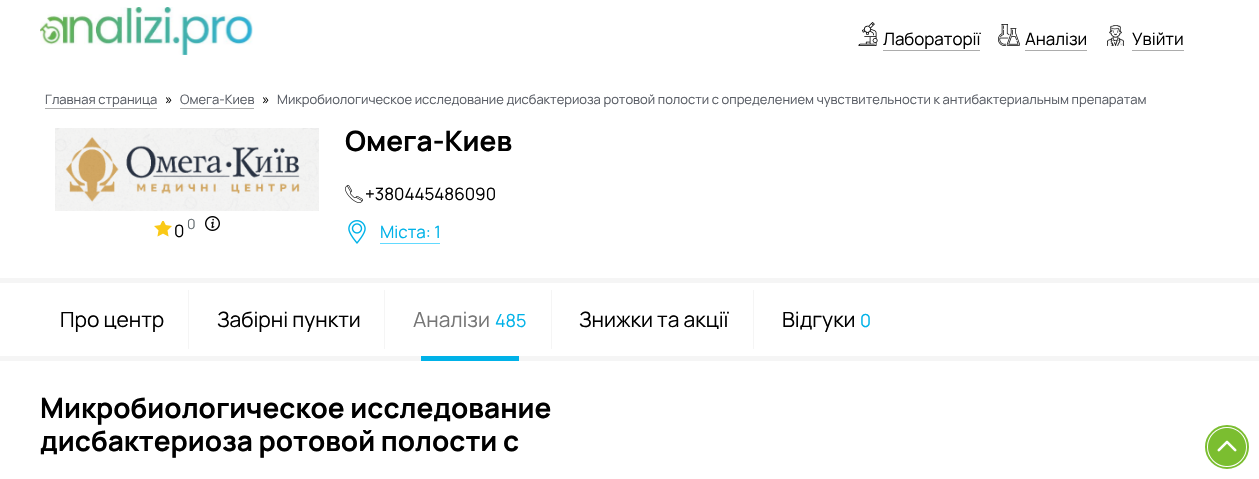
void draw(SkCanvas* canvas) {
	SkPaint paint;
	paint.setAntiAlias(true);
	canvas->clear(0xffffffff);
	canvas->drawImageRect(SkImages::DeferredFromEncodedData(SkData::MakeFromFileName("img1.png")), SkRect::MakeXYWH(40, 7, 213, 48), SkSamplingOptions());
	canvas->drawImageRect(SkImages::DeferredFromEncodedData(SkData::MakeFromFileName("img2.png")), SkRect::MakeXYWH(858, 22, 20, 24), SkSamplingOptions());
	SkFont f1(fontMgr->matchFamilyStyle("Manrope", SkFontStyle::Normal()), 17);
	f1.setSubpixel(true);
	paint.setColor(0xff000000);
	canvas->drawString("Лабораторії", 883, 45, f1, paint);
	paint.setColor(0xffacacac);
	canvas->drawRect(SkRect::MakeXYWH(883, 50, 97, 1), paint);
	canvas->drawImageRect(SkImages::DeferredFromEncodedData(SkData::MakeFromFileName("img3.png")), SkRect::MakeXYWH(998, 24, 22, 22), SkSamplingOptions());
	paint.setColor(0xff000000);
	canvas->drawString("Аналізи", 1025, 45, f1, paint);
	paint.setColor(0xffacacac);
	canvas->drawRect(SkRect::MakeXYWH(1025, 50, 62, 1), paint);
	canvas->drawImageRect(SkImages::DeferredFromEncodedData(SkData::MakeFromFileName("img4.png")), SkRect::MakeXYWH(1107, 25, 17, 21), SkSamplingOptions());
	paint.setColor(0xff000000);
	canvas->drawString("Увійти", 1132, 45, f1, paint);
	paint.setColor(0xffacacac);
	canvas->drawRect(SkRect::MakeXYWH(1132, 50, 52, 1), paint);
	SkFont f2(fontMgr->matchFamilyStyle("Manrope", SkFontStyle::Normal()), 13);
	f2.setSubpixel(true);
	paint.setColor(0xff5a5e66);
	canvas->drawString("Главная страница", 45, 104, f2, paint);
	paint.setColor(0xffacacac);
	canvas->drawRect(SkRect::MakeXYWH(45, 108, 112, 1), paint);
	SkFont f3(fontMgr->matchFamilyStyle("Manrope", SkFontStyle::Normal()), 14);
	f3.setSubpixel(true);
	paint.setColor(0xff000000);
	canvas->drawString("»", 165, 104, f3, paint);
	paint.setColor(0xff5a5e66);
	canvas->drawString("Омега-Киев", 180, 104, f2, paint);
	paint.setColor(0xffacacac);
	canvas->drawRect(SkRect::MakeXYWH(180, 108, 74, 1), paint);
	paint.setColor(0xff000000);
	canvas->drawString("»", 262, 104, f3, paint);
	paint.setColor(0xff5a5e66);
	canvas->drawString("Микробиологическое исследование дисбактериоза ротовой полости с определением чувствительности к антибактериальным препаратам", 277, 104, f2, paint);
	canvas->drawImageRect(SkImages::DeferredFromEncodedData(SkData::MakeFromFileName("img5.png")), SkRect::MakeXYWH(55, 128, 264, 83), SkSamplingOptions());
	canvas->drawImageRect(SkImages::DeferredFromEncodedData(SkData::MakeFromFileName("img6.png")), SkRect::MakeXYWH(154, 221, 18, 16), SkSamplingOptions());
	paint.setColor(0xff000000);
	canvas->drawString("0", 174, 237, f1, paint);
	canvas->drawImageRect(SkImages::DeferredFromEncodedData(SkData::MakeFromFileName("img7.png")), SkRect::MakeXYWH(205, 216, 15, 15), SkSamplingOptions());
	paint.setColor(0xff636b6f);
	canvas->drawString("0", 187, 229, f3, paint);
	SkFont f4(fontMgr->matchFamilyStyle("Manrope", SkFontStyle::Bold()), 28);
	f4.setSubpixel(true);
	paint.setColor(0xff000000);
	canvas->drawString("Омега-Киев", 345, 151, f4, paint);
	canvas->drawImageRect(SkImages::DeferredFromEncodedData(SkData::MakeFromFileName("img8.png")), SkRect::MakeXYWH(345, 185, 18, 18), SkSamplingOptions());
	canvas->drawString("+380445486090", 365, 200, f1, paint);
	paint.setColor(0xff62daff);
	canvas->drawRect(SkRect::MakeXYWH(380, 243, 60, 1), paint);
	canvas->drawImageRect(SkImages::DeferredFromEncodedData(SkData::MakeFromFileName("img9.png")), SkRect::MakeXYWH(348, 220, 18, 24), SkSamplingOptions());
	paint.setColor(0xff00b2e8);
	canvas->drawString("Міста: 1", 380, 238, f1, paint);
	paint.setColor(0xfff5f5f5);
	canvas->drawRect(SkRect::MakeXYWH(0, 278, 1259, 5), paint);
	canvas->drawRect(SkRect::MakeXYWH(0, 356, 1259, 5), paint);
	SkFont f5(fontMgr->matchFamilyStyle("Manrope", SkFontStyle::Normal()), 21);
	f5.setSubpixel(true);
	paint.setColor(0xff000000);
	canvas->drawString("Про центр", 60, 327, f5, paint);
	paint.setColor(0xfff5f5f5);
	canvas->drawRect(SkRect::MakeXYWH(188, 290, 1, 59), paint);
	paint.setColor(0xff000000);
	canvas->drawString("Забірні пункти", 217, 327, f5, paint);
	paint.setColor(0xfff5f5f5);
	canvas->drawRect(SkRect::MakeXYWH(384, 290, 1, 59), paint);
	paint.setColor(0xff767676);
	canvas->drawString("Аналізи", 413, 327, f5, paint);
	SkFont f6(fontMgr->matchFamilyStyle("Manrope", SkFontStyle::Normal()), 18);
	f6.setSubpixel(true);
	paint.setColor(0xff00b2e8);
	canvas->drawString("485", 495, 327, f6, paint);
	paint.setColor(0xfff5f5f5);
	canvas->drawRect(SkRect::MakeXYWH(551, 290, 1, 59), paint);
	paint.setColor(0xff00b2e8);
	canvas->drawRect(SkRect::MakeXYWH(421, 356, 98, 5), paint);
	paint.setColor(0xff000000);
	canvas->drawString("Знижки та акції", 579, 327, f5, paint);
	paint.setColor(0xfff5f5f5);
	canvas->drawRect(SkRect::MakeXYWH(753, 290, 1, 59), paint);
	paint.setColor(0xff000000);
	canvas->drawString("Відгуки", 782, 327, f5, paint);
	paint.setColor(0xff00b2e8);
	canvas->drawString("0", 860, 327, f6, paint);
	paint.setColor(0xff000000);
	canvas->drawString("Микробиологическое исследование", 40, 418, f4, paint);
	canvas->drawString("дисбактериоза ротовой полости с", 40, 451, f4, paint);
	canvas->drawImageRect(SkImages::DeferredFromEncodedData(SkData::MakeFromFileName("img10.png")), SkRect::MakeXYWH(1208, 428, 38, 38), SkSamplingOptions());
	paint.setStroke(true);
	paint.setStrokeWidth(2);
	paint.setColor(0xff7bbe30);
	canvas->drawCircle(1227, 447, 21, paint);
}
